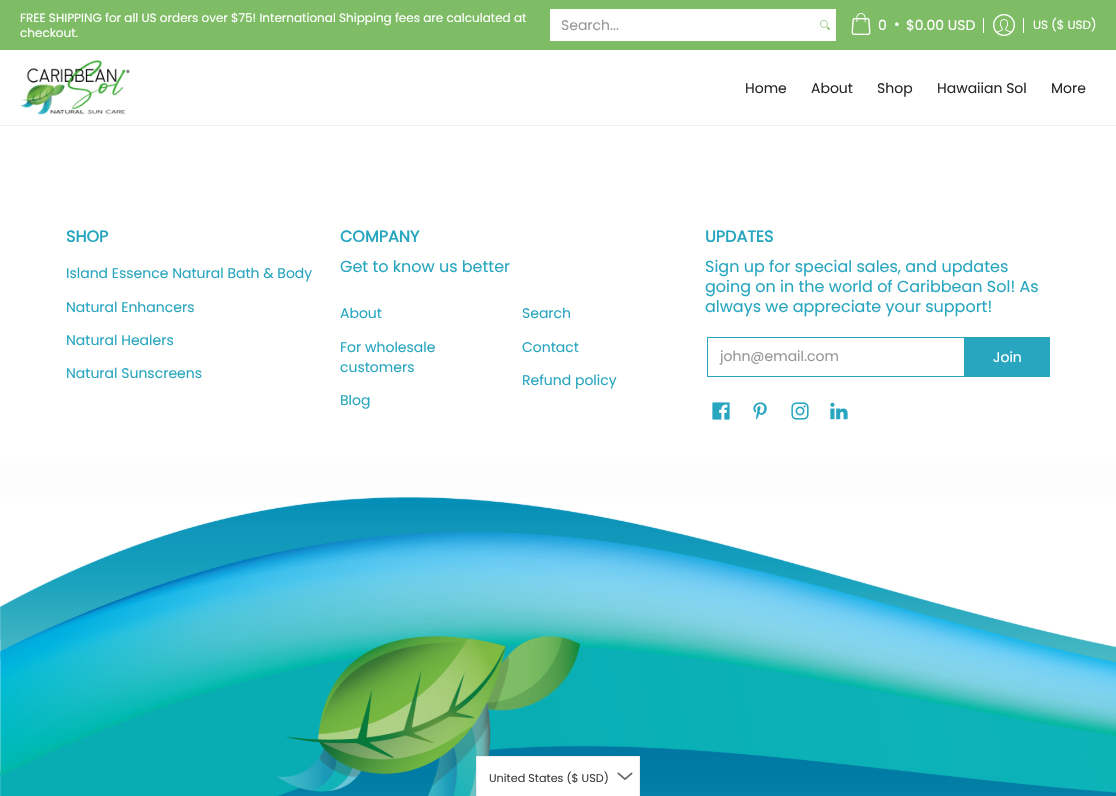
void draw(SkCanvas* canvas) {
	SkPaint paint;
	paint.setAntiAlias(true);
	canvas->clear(0xffffffff);
	paint.setColor(0xff7ebd65);
	canvas->drawRect(SkRect::MakeXYWH(0, 0, 1116, 50), paint);
	SkFont f1(fontMgr->matchFamilyStyle("Poppins", SkFontStyle::Normal()), 12);
	f1.setSubpixel(true);
	paint.setColor(0xffffffff);
	canvas->drawString("FREE SHIPPING for all US orders over $75! International Shipping fees are calculated at", 20, 22, f1, paint);
	canvas->drawString("checkout.", 20, 37, f1, paint);
	canvas->drawRect(SkRect::MakeXYWH(550, 9, 286, 32), paint);
	canvas->drawImageRect(SkImages::DeferredFromEncodedData(SkData::MakeFromFileName("img1.png")), SkRect::MakeXYWH(820, 20, 10, 10), SkSamplingOptions());
	SkFont f2(fontMgr->matchFamilyStyle("Poppins", SkFontStyle::Normal()), 14);
	f2.setSubpixel(true);
	paint.setColor(0xff989898);
	canvas->drawString("Search...", 561, 30, f2, paint);
	canvas->drawImageRect(SkImages::DeferredFromEncodedData(SkData::MakeFromFileName("img2.png")), SkRect::MakeXYWH(851, 13, 20, 22), SkSamplingOptions());
	paint.setColor(0xffffffff);
	canvas->drawString("0", 878, 30, f2, paint);
	canvas->drawString("•", 894, 29, f2, paint);
	canvas->drawString("$0.00 USD", 906, 30, f2, paint);
	canvas->drawRect(SkRect::MakeXYWH(983, 18, 1, 15), paint);
	canvas->drawImageRect(SkImages::DeferredFromEncodedData(SkData::MakeFromFileName("img3.png")), SkRect::MakeXYWH(993, 14, 22, 22), SkSamplingOptions());
	canvas->drawRect(SkRect::MakeXYWH(1023, 18, 1, 15), paint);
	canvas->drawString("US ($ USD)", 1033, 29, f1, paint);
	paint.setColor(0xffedeef4);
	canvas->drawRect(SkRect::MakeXYWH(0, 125, 1116, 1), paint);
	canvas->drawImageRect(SkImages::DeferredFromEncodedData(SkData::MakeFromFileName("img4.png")), SkRect::MakeXYWH(20, 60, 110, 55), SkSamplingOptions());
	paint.setColor(0xff292929);
	canvas->drawString("Home", 745, 93, f2, paint);
	canvas->drawString("About", 811, 93, f2, paint);
	canvas->drawString("Shop", 877, 93, f2, paint);
	canvas->drawString("Hawaiian Sol", 937, 93, f2, paint);
	canvas->drawString("More", 1051, 93, f2, paint);
	SkFont f3(fontMgr->matchFamilyStyle("Poppins", SkFontStyle::Bold()), 16);
	f3.setSubpixel(true);
	paint.setColor(0xff28a6bf);
	canvas->drawString("SHOP", 66, 242, f3, paint);
	canvas->drawString("Island Essence Natural Bath & Body", 66, 278, f2, paint);
	canvas->drawString("Natural Enhancers", 66, 312, f2, paint);
	canvas->drawString("Natural Healers", 66, 345, f2, paint);
	canvas->drawString("Natural Sunscreens", 66, 378, f2, paint);
	canvas->drawString("COMPANY", 340, 242, f3, paint);
	SkFont f4(fontMgr->matchFamilyStyle("Poppins", SkFontStyle::Normal()), 16);
	f4.setSubpixel(true);
	canvas->drawString("Get to know us better", 340, 272, f4, paint);
	canvas->drawString("About", 340, 318, f2, paint);
	canvas->drawString("For wholesale", 340, 352, f2, paint);
	canvas->drawString("customers", 340, 372, f2, paint);
	canvas->drawString("Blog", 340, 405, f2, paint);
	canvas->drawString("Search", 522, 318, f2, paint);
	canvas->drawString("Contact", 522, 352, f2, paint);
	canvas->drawString("Refund policy", 522, 385, f2, paint);
	canvas->drawString("UPDATES", 705, 242, f3, paint);
	canvas->drawString("Sign up for special sales, and updates", 705, 272, f4, paint);
	canvas->drawString("going on in the world of Caribbean Sol! As", 705, 292, f4, paint);
	canvas->drawString("always we appreciate your support!", 705, 312, f4, paint);
	paint.setStroke(true);
	paint.setStrokeWidth(1);
	canvas->drawRect(SkRect::MakeXYWH(707.5, 337.5, 258, 39), paint);
	paint.setStroke(false);
	paint.setColor(0xff989898);
	canvas->drawString("john@email.com", 720, 361, f2, paint);
	paint.setColor(0xff28a6bf);
	canvas->drawRect(SkRect::MakeXYWH(964, 337, 86, 40), paint);
	paint.setColor(0xffffffff);
	canvas->drawString("Join", 993, 362, f2, paint);
	canvas->drawImageRect(SkImages::DeferredFromEncodedData(SkData::MakeFromFileName("img5.png")), SkRect::MakeXYWH(712, 402, 18, 18), SkSamplingOptions());
	canvas->drawImageRect(SkImages::DeferredFromEncodedData(SkData::MakeFromFileName("img6.png")), SkRect::MakeXYWH(753, 402, 14, 18), SkSamplingOptions());
	canvas->drawImageRect(SkImages::DeferredFromEncodedData(SkData::MakeFromFileName("img7.png")), SkRect::MakeXYWH(791, 402, 18, 18), SkSamplingOptions());
	canvas->drawImageRect(SkImages::DeferredFromEncodedData(SkData::MakeFromFileName("img8.png")), SkRect::MakeXYWH(830, 402, 18, 18), SkSamplingOptions());
	paint.setColor(0xfffcfcfc);
	canvas->drawRect(SkRect::MakeXYWH(0, 463, 1116, 34), paint);
	canvas->drawImageRect(SkImages::DeferredFromEncodedData(SkData::MakeFromFileName("img9.png")), SkRect::MakeXYWH(0, 497, 1116, 299), SkSamplingOptions());
	paint.setColor(0xffffffff);
	canvas->drawRect(SkRect::MakeXYWH(477, 757, 162, 39), paint);
	canvas->drawImageRect(SkImages::DeferredFromEncodedData(SkData::MakeFromFileName("img10.png")), SkRect::MakeXYWH(617, 772, 16, 8), SkSamplingOptions());
	paint.setStroke(true);
	paint.setColor(0xffedeef4);
	canvas->drawRect(SkRect::MakeXYWH(476.5, 756.5, 163, 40), paint);
	SkFont f5(fontMgr->matchFamilyStyle("Poppins", SkFontStyle::Normal()), 11.25);
	f5.setSubpixel(true);
	paint.setStroke(false);
	paint.setColor(0xff3e3e3e);
	canvas->drawString("United States ($ USD)", 489, 782, f5, paint);
}
